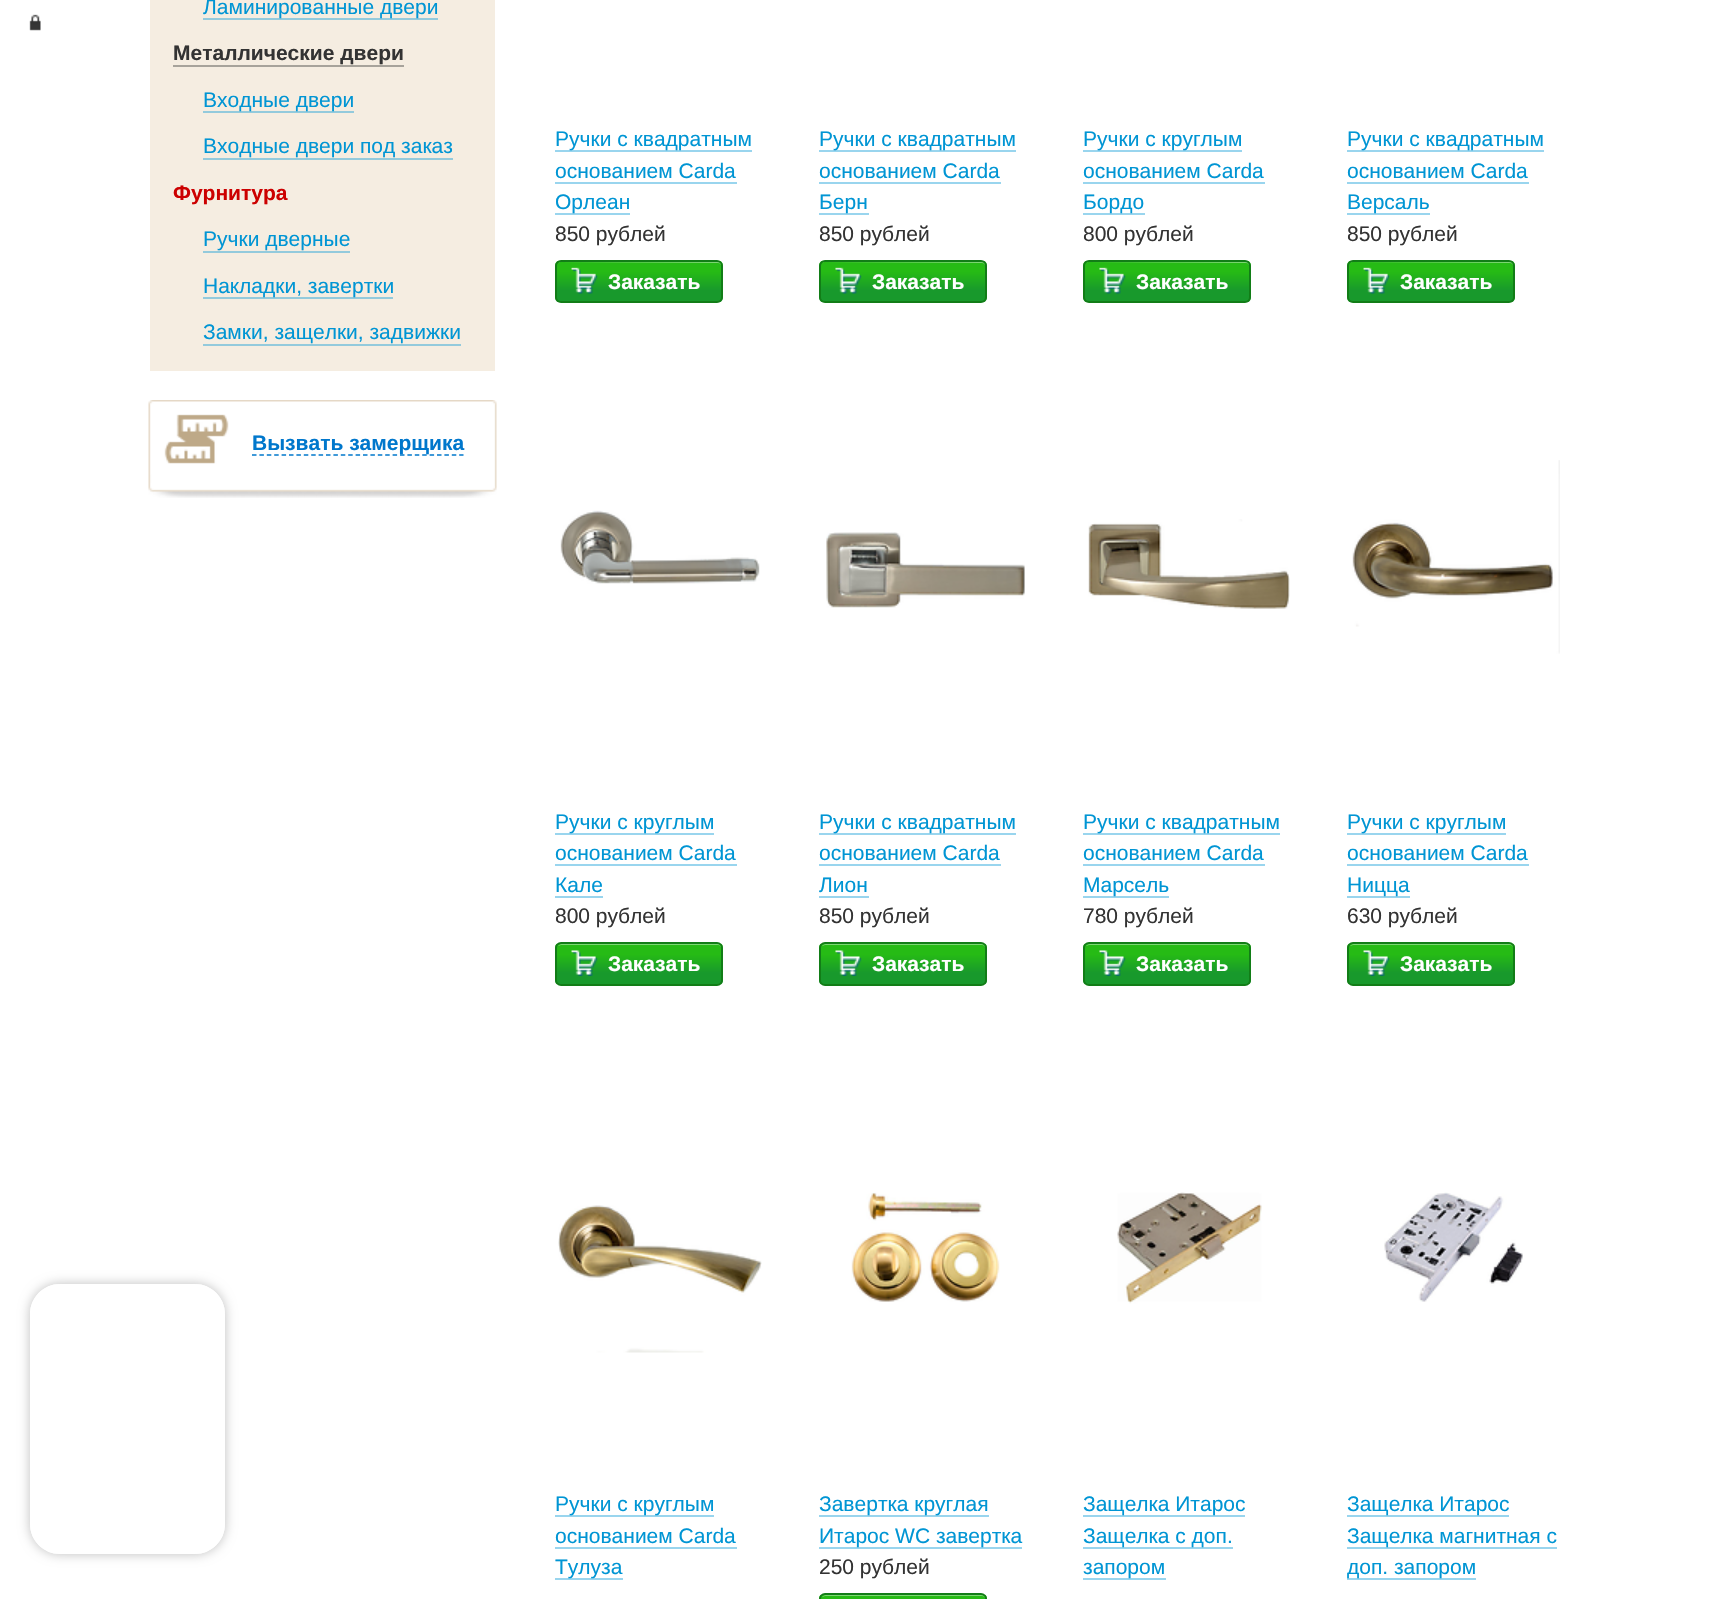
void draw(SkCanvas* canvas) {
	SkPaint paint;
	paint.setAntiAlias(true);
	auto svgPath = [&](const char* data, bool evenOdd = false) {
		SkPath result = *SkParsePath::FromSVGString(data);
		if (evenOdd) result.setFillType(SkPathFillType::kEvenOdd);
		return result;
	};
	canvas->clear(0xffffffff);
	canvas->drawImageRect(SkImages::DeferredFromEncodedData(SkData::MakeFromFileName("img1.png")), SkRect::MakeXYWH(29, 14, 12, 17), SkSamplingOptions());
	paint.setColor(0xfff5ede1);
	canvas->drawRect(SkRect::MakeXYWH(150, 0, 345, 371), paint);
	paint.setColor(0xff93cadc);
	canvas->drawRect(SkRect::MakeXYWH(203, 18, 235, 2), paint);
	SkFont f1(fontMgr->matchFamilyStyle("Liberation Sans", SkFontStyle::Normal()), 21);
	f1.setSubpixel(true);
	paint.setColor(0xff0095d4);
	canvas->drawString("Ламинированные двери", 203, 14, f1, paint);
	SkFont f2(fontMgr->matchFamilyStyle("Liberation Sans", SkFontStyle::Bold()), 21);
	f2.setSubpixel(true);
	paint.setColor(0xff333333);
	canvas->drawString("Металлические двери", 173, 60, f2, paint);
	paint.setColor(0xffa7a39b);
	canvas->drawRect(SkRect::MakeXYWH(173, 65, 231, 2), paint);
	paint.setColor(0xff93cadc);
	canvas->drawRect(SkRect::MakeXYWH(203, 111, 151, 2), paint);
	paint.setColor(0xff0095d4);
	canvas->drawString("Входные двери", 203, 107, f1, paint);
	canvas->drawString("Входные двери под заказ", 203, 153, f1, paint);
	paint.setColor(0xff93cadc);
	canvas->drawRect(SkRect::MakeXYWH(203, 158, 250, 2), paint);
	paint.setColor(0xffcc0000);
	canvas->drawString("Фурнитура", 173, 200, f2, paint);
	paint.setColor(0xff0095d4);
	canvas->drawString("Ручки дверные", 203, 246, f1, paint);
	paint.setColor(0xff93cadc);
	canvas->drawRect(SkRect::MakeXYWH(203, 251, 147, 2), paint);
	canvas->drawRect(SkRect::MakeXYWH(203, 297, 190, 2), paint);
	paint.setColor(0xff0095d4);
	canvas->drawString("Накладки, завертки", 203, 293, f1, paint);
	canvas->drawString("Замки, защелки, задвижки", 203, 339, f1, paint);
	paint.setColor(0xff93cadc);
	canvas->drawRect(SkRect::MakeXYWH(203, 344, 258, 2), paint);
	canvas->drawImageRect(SkImages::DeferredFromEncodedData(SkData::MakeFromFileName("img2.png")), SkRect::MakeXYWH(148, 400, 349, 98), SkSamplingOptions());
	paint.setStroke(true);
	paint.setStrokeWidth(1.5);
	paint.setColor(0xff0077cc);
	paint.setPathEffect(SkDashPathEffect::Make({{4.5f, 2.9f}}, 0));
	canvas->drawPath(svgPath("M252 455H463.5"), paint);
	paint.setPathEffect(nullptr);
	paint.setStroke(false);
	canvas->drawString("Вызвать замерщика", 252, 450, f2, paint);
	paint.setColor(0xff99d5ee);
	canvas->drawRect(SkRect::MakeXYWH(555, 150, 197, 2), paint);
	paint.setColor(0xff0095d4);
	canvas->drawString("Ручки с квадратным", 555, 146, f1, paint);
	canvas->drawString("основанием Carda", 555, 178, f1, paint);
	paint.setColor(0xff99d5ee);
	canvas->drawRect(SkRect::MakeXYWH(555, 182, 182, 2), paint);
	canvas->drawRect(SkRect::MakeXYWH(555, 213, 75, 2), paint);
	paint.setColor(0xff0095d4);
	canvas->drawString("Орлеан", 555, 209, f1, paint);
	paint.setColor(0xff333333);
	canvas->drawString("850 рублей", 555, 241, f1, paint);
	canvas->save();
	canvas->clipPath(svgPath("M561 260H717C720.5 260 723 262.5 723 266V297C723 300.5 720.5 303 717 303H561C557.5 303 555 300.5 555 297V266C555 262.5 557.5 260 561 260Z"), true);
	{
		const SkColor colors[] = {0xff26bb15, 0xff18992c};
		const float stops[] = {0.26, 0.72};
		const SkPoint ends[] = {{639, 261}, {639, 302}};
		paint.setShader(SkGradientShader::MakeLinear(ends, colors, stops, 2, SkTileMode::kClamp));
		paint.setAlpha(255);
	}
	canvas->drawRect(SkRect::MakeXYWH(555, 261, 168, 41), paint);
	canvas->restore();
	paint.setShader(nullptr);
	paint.setColor(0xff7dd673);
	canvas->drawPath(svgPath("M561 262L718 263C720 263 722 265 722 268V266C722 263 720 261 717 261H562C560 261 559 262 558 263C559 262 560 262 561 262ZM722 293L721 299C722 297 722 295 722 293Z", true), paint);
	paint.setStroke(true);
	paint.setStrokeWidth(2);
	paint.setColor(0xff127d17);
	canvas->drawRoundRect(SkRect::MakeXYWH(556, 261, 166, 41), 5, 5, paint);
	canvas->drawImageRect(SkImages::DeferredFromEncodedData(SkData::MakeFromFileName("img3.png")), SkRect::MakeXYWH(571, 267, 27, 27), SkSamplingOptions());
	paint.setStroke(false);
	paint.setColor(0xffffffff);
	canvas->drawString("Заказать", 608, 289, f2, paint);
	paint.setColor(0xff99d5ee);
	canvas->drawRect(SkRect::MakeXYWH(819, 150, 197, 2), paint);
	paint.setColor(0xff0095d4);
	canvas->drawString("Ручки с квадратным", 819, 146, f1, paint);
	canvas->drawString("основанием Carda", 819, 178, f1, paint);
	paint.setColor(0xff99d5ee);
	canvas->drawRect(SkRect::MakeXYWH(819, 182, 182, 2), paint);
	canvas->drawRect(SkRect::MakeXYWH(819, 213, 50, 2), paint);
	paint.setColor(0xff0095d4);
	canvas->drawString("Берн", 819, 209, f1, paint);
	paint.setColor(0xff333333);
	canvas->drawString("850 рублей", 819, 241, f1, paint);
	canvas->save();
	canvas->clipPath(svgPath("M825 260H981C984.5 260 987 262.5 987 266V297C987 300.5 984.5 303 981 303H825C821.5 303 819 300.5 819 297V266C819 262.5 821.5 260 825 260Z"), true);
	{
		const SkColor colors[] = {0xff26bb15, 0xff18992c};
		const float stops[] = {0.26, 0.72};
		const SkPoint ends[] = {{903, 261}, {903, 302}};
		paint.setShader(SkGradientShader::MakeLinear(ends, colors, stops, 2, SkTileMode::kClamp));
		paint.setAlpha(255);
	}
	canvas->drawRect(SkRect::MakeXYWH(819, 261, 168, 41), paint);
	canvas->restore();
	paint.setShader(nullptr);
	paint.setColor(0xff7dd673);
	canvas->drawPath(svgPath("M825 262L982 263C984 263 986 265 986 268V266C986 263 984 261 981 261H826C824 261 823 262 822 263C823 262 824 262 825 262ZM986 293L985 299C986 297 986 295 986 293Z", true), paint);
	paint.setStroke(true);
	paint.setColor(0xff127d17);
	canvas->drawRoundRect(SkRect::MakeXYWH(820, 261, 166, 41), 5, 5, paint);
	canvas->drawImageRect(SkImages::DeferredFromEncodedData(SkData::MakeFromFileName("img4.png")), SkRect::MakeXYWH(835, 267, 27, 27), SkSamplingOptions());
	paint.setStroke(false);
	paint.setColor(0xffffffff);
	canvas->drawString("Заказать", 872, 289, f2, paint);
	paint.setColor(0xff99d5ee);
	canvas->drawRect(SkRect::MakeXYWH(1083, 150, 159, 2), paint);
	paint.setColor(0xff0095d4);
	canvas->drawString("Ручки с круглым", 1083, 146, f1, paint);
	canvas->drawString("основанием Carda", 1083, 178, f1, paint);
	paint.setColor(0xff99d5ee);
	canvas->drawRect(SkRect::MakeXYWH(1083, 182, 182, 2), paint);
	canvas->drawRect(SkRect::MakeXYWH(1083, 213, 62, 2), paint);
	paint.setColor(0xff0095d4);
	canvas->drawString("Бордо", 1083, 209, f1, paint);
	paint.setColor(0xff333333);
	canvas->drawString("800 рублей", 1083, 241, f1, paint);
	canvas->save();
	canvas->clipPath(svgPath("M1089 260H1245C1248.5 260 1251 262.5 1251 266V297C1251 300.5 1248.5 303 1245 303H1089C1085.5 303 1083 300.5 1083 297V266C1083 262.5 1085.5 260 1089 260Z"), true);
	{
		const SkColor colors[] = {0xff26bb15, 0xff18992c};
		const float stops[] = {0.26, 0.72};
		const SkPoint ends[] = {{1167, 261}, {1167, 302}};
		paint.setShader(SkGradientShader::MakeLinear(ends, colors, stops, 2, SkTileMode::kClamp));
		paint.setAlpha(255);
	}
	canvas->drawRect(SkRect::MakeXYWH(1083, 261, 168, 41), paint);
	canvas->restore();
	paint.setShader(nullptr);
	paint.setColor(0xff7dd673);
	canvas->drawPath(svgPath("M1089 262L1246 263C1248 263 1250 265 1250 268V266C1250 263 1248 261 1245 261H1090C1088 261 1087 262 1086 263C1087 262 1088 262 1089 262ZM1250 293L1249 299C1250 297 1250 295 1250 293Z", true), paint);
	paint.setStroke(true);
	paint.setColor(0xff127d17);
	canvas->drawRoundRect(SkRect::MakeXYWH(1084, 261, 166, 41), 5, 5, paint);
	canvas->drawImageRect(SkImages::DeferredFromEncodedData(SkData::MakeFromFileName("img4.png")), SkRect::MakeXYWH(1099, 267, 27, 27), SkSamplingOptions());
	paint.setStroke(false);
	paint.setColor(0xffffffff);
	canvas->drawString("Заказать", 1136, 289, f2, paint);
	paint.setColor(0xff99d5ee);
	canvas->drawRect(SkRect::MakeXYWH(1347, 150, 197, 2), paint);
	paint.setColor(0xff0095d4);
	canvas->drawString("Ручки с квадратным", 1347, 146, f1, paint);
	canvas->drawString("основанием Carda", 1347, 178, f1, paint);
	paint.setColor(0xff99d5ee);
	canvas->drawRect(SkRect::MakeXYWH(1347, 182, 182, 2), paint);
	canvas->drawRect(SkRect::MakeXYWH(1347, 213, 83, 2), paint);
	paint.setColor(0xff0095d4);
	canvas->drawString("Версаль", 1347, 209, f1, paint);
	paint.setColor(0xff333333);
	canvas->drawString("850 рублей", 1347, 241, f1, paint);
	canvas->save();
	canvas->clipPath(svgPath("M1353 260H1509C1512.5 260 1515 262.5 1515 266V297C1515 300.5 1512.5 303 1509 303H1353C1349.5 303 1347 300.5 1347 297V266C1347 262.5 1349.5 260 1353 260Z"), true);
	{
		const SkColor colors[] = {0xff26bb15, 0xff18992c};
		const float stops[] = {0.26, 0.72};
		const SkPoint ends[] = {{1431, 261}, {1431, 302}};
		paint.setShader(SkGradientShader::MakeLinear(ends, colors, stops, 2, SkTileMode::kClamp));
		paint.setAlpha(255);
	}
	canvas->drawRect(SkRect::MakeXYWH(1347, 261, 168, 41), paint);
	canvas->restore();
	paint.setShader(nullptr);
	paint.setColor(0xff7dd673);
	canvas->drawPath(svgPath("M1353 262L1510 263C1512 263 1514 265 1514 268V266C1514 263 1512 261 1509 261H1354C1352 261 1351 262 1350 263C1351 262 1352 262 1353 262ZM1514 293L1513 299C1514 297 1514 295 1514 293Z", true), paint);
	paint.setStroke(true);
	paint.setColor(0xff127d17);
	canvas->drawRoundRect(SkRect::MakeXYWH(1348, 261, 166, 41), 5, 5, paint);
	canvas->drawImageRect(SkImages::DeferredFromEncodedData(SkData::MakeFromFileName("img3.png")), SkRect::MakeXYWH(1363, 267, 27, 27), SkSamplingOptions());
	paint.setStroke(false);
	paint.setColor(0xffffffff);
	canvas->drawString("Заказать", 1400, 289, f2, paint);
	canvas->drawImageRect(SkImages::DeferredFromEncodedData(SkData::MakeFromFileName("img5.png")), SkRect::MakeXYWH(560, 510, 200, 74), SkSamplingOptions());
	paint.setColor(0xff99d5ee);
	canvas->drawRect(SkRect::MakeXYWH(555, 833, 159, 2), paint);
	paint.setColor(0xff0095d4);
	canvas->drawString("Ручки с круглым", 555, 829, f1, paint);
	canvas->drawString("основанием Carda", 555, 860, f1, paint);
	paint.setColor(0xff99d5ee);
	canvas->drawRect(SkRect::MakeXYWH(555, 864, 182, 2), paint);
	paint.setColor(0xff0095d4);
	canvas->drawString("Кале", 555, 892, f1, paint);
	paint.setColor(0xff99d5ee);
	canvas->drawRect(SkRect::MakeXYWH(555, 896, 48, 2), paint);
	paint.setColor(0xff333333);
	canvas->drawString("800 рублей", 555, 923, f1, paint);
	canvas->save();
	canvas->clipPath(svgPath("M561 942H717C720.5 942 723 944.5 723 948V980C723 983.5 720.5 986 717 986H561C557.5 986 555 983.5 555 980V948C555 944.5 557.5 942 561 942Z"), true);
	{
		const SkColor colors[] = {0xff26bb15, 0xff18992c};
		const float stops[] = {0.26, 0.72};
		const SkPoint ends[] = {{639, 944}, {639, 984}};
		paint.setShader(SkGradientShader::MakeLinear(ends, colors, stops, 2, SkTileMode::kClamp));
		paint.setAlpha(255);
	}
	canvas->drawRect(SkRect::MakeXYWH(555, 944, 168, 40), paint);
	canvas->restore();
	paint.setShader(nullptr);
	paint.setColor(0xff7dd673);
	canvas->drawPath(svgPath("M561 945H718C720 945 722 947 722 950V949C722 946 720 944 717 944H562C560 944 559 945 558 946ZM722 976V981Z", true), paint);
	paint.setStroke(true);
	paint.setColor(0xff127d17);
	canvas->drawRoundRect(SkRect::MakeXYWH(556, 943, 166, 42), 5, 5, paint);
	canvas->drawImageRect(SkImages::DeferredFromEncodedData(SkData::MakeFromFileName("img6.png")), SkRect::MakeXYWH(571, 950, 27, 26), SkSamplingOptions());
	paint.setStroke(false);
	paint.setColor(0xffffffff);
	canvas->drawString("Заказать", 608, 971, f2, paint);
	canvas->drawImageRect(SkImages::DeferredFromEncodedData(SkData::MakeFromFileName("img7.png")), SkRect::MakeXYWH(826, 532, 199, 76), SkSamplingOptions());
	paint.setColor(0xff99d5ee);
	canvas->drawRect(SkRect::MakeXYWH(819, 833, 197, 2), paint);
	paint.setColor(0xff0095d4);
	canvas->drawString("Ручки с квадратным", 819, 829, f1, paint);
	canvas->drawString("основанием Carda", 819, 860, f1, paint);
	paint.setColor(0xff99d5ee);
	canvas->drawRect(SkRect::MakeXYWH(819, 864, 182, 2), paint);
	paint.setColor(0xff0095d4);
	canvas->drawString("Лион", 819, 892, f1, paint);
	paint.setColor(0xff99d5ee);
	canvas->drawRect(SkRect::MakeXYWH(819, 896, 50, 2), paint);
	paint.setColor(0xff333333);
	canvas->drawString("850 рублей", 819, 923, f1, paint);
	canvas->save();
	canvas->clipPath(svgPath("M825 942H981C984.5 942 987 944.5 987 948V980C987 983.5 984.5 986 981 986H825C821.5 986 819 983.5 819 980V948C819 944.5 821.5 942 825 942Z"), true);
	{
		const SkColor colors[] = {0xff26bb15, 0xff18992c};
		const float stops[] = {0.26, 0.72};
		const SkPoint ends[] = {{903, 944}, {903, 984}};
		paint.setShader(SkGradientShader::MakeLinear(ends, colors, stops, 2, SkTileMode::kClamp));
		paint.setAlpha(255);
	}
	canvas->drawRect(SkRect::MakeXYWH(819, 944, 168, 40), paint);
	canvas->restore();
	paint.setShader(nullptr);
	paint.setColor(0xff7dd673);
	canvas->drawPath(svgPath("M825 945H982C984 945 986 947 986 950V949C986 946 984 944 981 944H826C824 944 823 945 822 946ZM986 976V981Z", true), paint);
	paint.setStroke(true);
	paint.setColor(0xff127d17);
	canvas->drawRoundRect(SkRect::MakeXYWH(820, 943, 166, 42), 5, 5, paint);
	canvas->drawImageRect(SkImages::DeferredFromEncodedData(SkData::MakeFromFileName("img8.png")), SkRect::MakeXYWH(835, 950, 27, 26), SkSamplingOptions());
	paint.setStroke(false);
	paint.setColor(0xffffffff);
	canvas->drawString("Заказать", 872, 971, f2, paint);
	canvas->drawImageRect(SkImages::DeferredFromEncodedData(SkData::MakeFromFileName("img9.png")), SkRect::MakeXYWH(1088, 519, 202, 90), SkSamplingOptions());
	paint.setColor(0xff99d5ee);
	canvas->drawRect(SkRect::MakeXYWH(1083, 833, 197, 2), paint);
	paint.setColor(0xff0095d4);
	canvas->drawString("Ручки с квадратным", 1083, 829, f1, paint);
	canvas->drawString("основанием Carda", 1083, 860, f1, paint);
	paint.setColor(0xff99d5ee);
	canvas->drawRect(SkRect::MakeXYWH(1083, 864, 182, 2), paint);
	canvas->drawRect(SkRect::MakeXYWH(1083, 896, 86, 2), paint);
	paint.setColor(0xff0095d4);
	canvas->drawString("Марсель", 1083, 892, f1, paint);
	paint.setColor(0xff333333);
	canvas->drawString("780 рублей", 1083, 923, f1, paint);
	canvas->save();
	canvas->clipPath(svgPath("M1089 942H1245C1248.5 942 1251 944.5 1251 948V980C1251 983.5 1248.5 986 1245 986H1089C1085.5 986 1083 983.5 1083 980V948C1083 944.5 1085.5 942 1089 942Z"), true);
	{
		const SkColor colors[] = {0xff26bb15, 0xff18992c};
		const float stops[] = {0.26, 0.72};
		const SkPoint ends[] = {{1167, 944}, {1167, 984}};
		paint.setShader(SkGradientShader::MakeLinear(ends, colors, stops, 2, SkTileMode::kClamp));
		paint.setAlpha(255);
	}
	canvas->drawRect(SkRect::MakeXYWH(1083, 944, 168, 40), paint);
	canvas->restore();
	paint.setShader(nullptr);
	paint.setColor(0xff7dd673);
	canvas->drawPath(svgPath("M1089 945H1246C1248 945 1250 947 1250 950V949C1250 946 1248 944 1245 944H1090C1088 944 1087 945 1086 946ZM1250 976V981Z", true), paint);
	paint.setStroke(true);
	paint.setColor(0xff127d17);
	canvas->drawRoundRect(SkRect::MakeXYWH(1084, 943, 166, 42), 5, 5, paint);
	canvas->drawImageRect(SkImages::DeferredFromEncodedData(SkData::MakeFromFileName("img8.png")), SkRect::MakeXYWH(1099, 950, 27, 26), SkSamplingOptions());
	paint.setStroke(false);
	paint.setColor(0xffffffff);
	canvas->drawString("Заказать", 1136, 971, f2, paint);
	canvas->drawImageRect(SkImages::DeferredFromEncodedData(SkData::MakeFromFileName("img10.png")), SkRect::MakeXYWH(1352, 460, 208, 194), SkSamplingOptions());
	paint.setColor(0xff99d5ee);
	canvas->drawRect(SkRect::MakeXYWH(1347, 833, 159, 2), paint);
	paint.setColor(0xff0095d4);
	canvas->drawString("Ручки с круглым", 1347, 829, f1, paint);
	canvas->drawString("основанием Carda", 1347, 860, f1, paint);
	paint.setColor(0xff99d5ee);
	canvas->drawRect(SkRect::MakeXYWH(1347, 864, 182, 2), paint);
	canvas->drawRect(SkRect::MakeXYWH(1347, 896, 63, 2), paint);
	paint.setColor(0xff0095d4);
	canvas->drawString("Ницца", 1347, 892, f1, paint);
	paint.setColor(0xff333333);
	canvas->drawString("630 рублей", 1347, 923, f1, paint);
	canvas->save();
	canvas->clipPath(svgPath("M1353 942H1509C1512.5 942 1515 944.5 1515 948V980C1515 983.5 1512.5 986 1509 986H1353C1349.5 986 1347 983.5 1347 980V948C1347 944.5 1349.5 942 1353 942Z"), true);
	{
		const SkColor colors[] = {0xff26bb15, 0xff18992c};
		const float stops[] = {0.26, 0.72};
		const SkPoint ends[] = {{1431, 944}, {1431, 984}};
		paint.setShader(SkGradientShader::MakeLinear(ends, colors, stops, 2, SkTileMode::kClamp));
		paint.setAlpha(255);
	}
	canvas->drawRect(SkRect::MakeXYWH(1347, 944, 168, 40), paint);
	canvas->restore();
	paint.setShader(nullptr);
	paint.setColor(0xff7dd673);
	canvas->drawPath(svgPath("M1353 945H1510C1512 945 1514 947 1514 950V949C1514 946 1512 944 1509 944H1354C1352 944 1351 945 1350 946ZM1514 976V981Z", true), paint);
	paint.setStroke(true);
	paint.setColor(0xff127d17);
	canvas->drawRoundRect(SkRect::MakeXYWH(1348, 943, 166, 42), 5, 5, paint);
	canvas->drawImageRect(SkImages::DeferredFromEncodedData(SkData::MakeFromFileName("img6.png")), SkRect::MakeXYWH(1363, 950, 27, 26), SkSamplingOptions());
	paint.setStroke(false);
	paint.setColor(0xffffffff);
	canvas->drawString("Заказать", 1400, 971, f2, paint);
	canvas->drawImageRect(SkImages::DeferredFromEncodedData(SkData::MakeFromFileName("img11.png")), SkRect::MakeXYWH(558, 1205, 204, 148), SkSamplingOptions());
	paint.setColor(0xff99d5ee);
	canvas->drawRect(SkRect::MakeXYWH(555, 1515, 159, 2), paint);
	paint.setColor(0xff0095d4);
	canvas->drawString("Ручки с круглым", 555, 1511, f1, paint);
	canvas->drawString("основанием Carda", 555, 1543, f1, paint);
	paint.setColor(0xff99d5ee);
	canvas->drawRect(SkRect::MakeXYWH(555, 1547, 182, 2), paint);
	canvas->drawRect(SkRect::MakeXYWH(555, 1578, 68, 2), paint);
	paint.setColor(0xff0095d4);
	canvas->drawString("Тулуза", 555, 1574, f1, paint);
	canvas->drawImageRect(SkImages::DeferredFromEncodedData(SkData::MakeFromFileName("img12.png")), SkRect::MakeXYWH(851, 1192, 149, 110), SkSamplingOptions());
	paint.setColor(0xff99d5ee);
	canvas->drawRect(SkRect::MakeXYWH(819, 1515, 170, 2), paint);
	paint.setColor(0xff0095d4);
	canvas->drawString("Завертка круглая", 819, 1511, f1, paint);
	paint.setColor(0xff99d5ee);
	canvas->drawRect(SkRect::MakeXYWH(819, 1547, 203, 2), paint);
	paint.setColor(0xff0095d4);
	canvas->drawString("Итарос WC завертка", 819, 1543, f1, paint);
	paint.setColor(0xff333333);
	canvas->drawString("250 рублей", 819, 1574, f1, paint);
	canvas->save();
	canvas->clipPath(svgPath("M825 1593H981C984.5 1593 987 1595.5 987 1599V1631C987 1634.5 984.5 1637 981 1637H825C821.5 1637 819 1634.5 819 1631V1599C819 1595.5 821.5 1593 825 1593Z"), true);
	{
		const SkColor colors[] = {0xff26bb15, 0xff18992c};
		const float stops[] = {0.26, 0.72};
		const SkPoint ends[] = {{903, 1595}, {903, 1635}};
		paint.setShader(SkGradientShader::MakeLinear(ends, colors, stops, 2, SkTileMode::kClamp));
		paint.setAlpha(255);
	}
	canvas->drawRect(SkRect::MakeXYWH(819, 1595, 168, 4), paint);
	canvas->restore();
	paint.setShader(nullptr);
	paint.setColor(0xff7dd673);
	canvas->drawPath(svgPath("M825 1596H982C984 1596 986 1598 986 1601V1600C986 1597 984 1595 981 1595H826C824 1595 823 1596 822 1597ZM986 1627V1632Z", true), paint);
	paint.setStroke(true);
	paint.setColor(0xff127d17);
	canvas->drawRoundRect(SkRect::MakeXYWH(820, 1594, 166, 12), 5, 5, paint);
	canvas->drawImageRect(SkImages::DeferredFromEncodedData(SkData::MakeFromFileName("img13.png")), SkRect::MakeXYWH(1117, 1192, 145, 112), SkSamplingOptions());
	paint.setStroke(false);
	paint.setColor(0xff99d5ee);
	canvas->drawRect(SkRect::MakeXYWH(1083, 1515, 162, 2), paint);
	paint.setColor(0xff0095d4);
	canvas->drawString("Защелка Итарос", 1083, 1511, f1, paint);
	paint.setColor(0xff99d5ee);
	canvas->drawRect(SkRect::MakeXYWH(1083, 1547, 150, 2), paint);
	paint.setColor(0xff0095d4);
	canvas->drawString("Защелка с доп.", 1083, 1543, f1, paint);
	paint.setColor(0xff99d5ee);
	canvas->drawRect(SkRect::MakeXYWH(1083, 1578, 83, 2), paint);
	paint.setColor(0xff0095d4);
	canvas->drawString("запором", 1083, 1574, f1, paint);
	canvas->drawImageRect(SkImages::DeferredFromEncodedData(SkData::MakeFromFileName("img14.png")), SkRect::MakeXYWH(1384, 1192, 139, 110), SkSamplingOptions());
	paint.setColor(0xff99d5ee);
	canvas->drawRect(SkRect::MakeXYWH(1347, 1515, 162, 2), paint);
	paint.setColor(0xff0095d4);
	canvas->drawString("Защелка Итарос", 1347, 1511, f1, paint);
	paint.setColor(0xff99d5ee);
	canvas->drawRect(SkRect::MakeXYWH(1347, 1547, 210, 2), paint);
	paint.setColor(0xff0095d4);
	canvas->drawString("Защелка магнитная с", 1347, 1543, f1, paint);
	paint.setColor(0xff99d5ee);
	canvas->drawRect(SkRect::MakeXYWH(1347, 1578, 129, 2), paint);
	paint.setColor(0xff0095d4);
	canvas->drawString("доп. запором", 1347, 1574, f1, paint);
	canvas->save();
	canvas->clipPath(svgPath("M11 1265H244V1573H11ZM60 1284H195C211.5 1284 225 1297.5 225 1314V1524C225 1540.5 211.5 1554 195 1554H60C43.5 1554 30 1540.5 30 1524V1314C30 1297.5 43.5 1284 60 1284Z", true), true);
	paint.setColor(0x40000000);
	paint.setMaskFilter(SkMaskFilter::MakeBlur(kNormal_SkBlurStyle, 6));
	canvas->drawRoundRect(SkRect::MakeXYWH(30, 1284, 195, 270), 30, 30, paint);
	paint.setMaskFilter(nullptr);
	canvas->restore();
	paint.setStroke(true);
	paint.setStrokeWidth(6);
	paint.setColor(0xffffffff);
	canvas->drawRoundRect(SkRect::MakeXYWH(33, 1287, 189, 264), 27, 27, paint);
}
